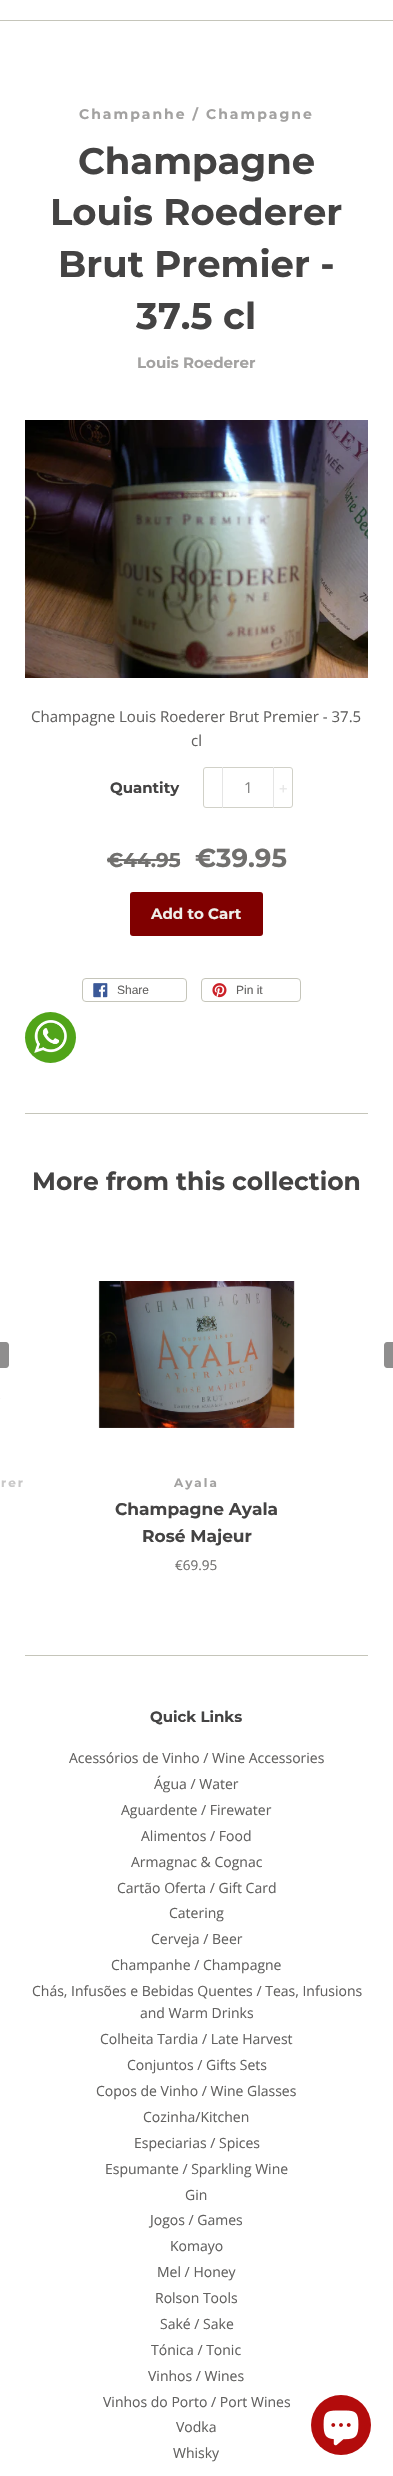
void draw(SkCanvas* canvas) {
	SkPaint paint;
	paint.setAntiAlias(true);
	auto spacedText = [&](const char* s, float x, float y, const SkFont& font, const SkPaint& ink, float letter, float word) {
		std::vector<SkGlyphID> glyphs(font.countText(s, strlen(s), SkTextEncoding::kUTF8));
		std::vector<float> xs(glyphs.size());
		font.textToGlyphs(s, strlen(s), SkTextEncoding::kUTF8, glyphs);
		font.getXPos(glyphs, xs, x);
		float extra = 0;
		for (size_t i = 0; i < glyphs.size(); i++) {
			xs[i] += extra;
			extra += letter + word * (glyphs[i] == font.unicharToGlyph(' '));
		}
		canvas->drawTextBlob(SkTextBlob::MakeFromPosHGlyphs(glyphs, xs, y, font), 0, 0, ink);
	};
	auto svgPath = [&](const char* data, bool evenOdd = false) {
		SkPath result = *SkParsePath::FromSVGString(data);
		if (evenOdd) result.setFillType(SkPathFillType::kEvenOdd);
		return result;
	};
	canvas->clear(0xffffffff);
	paint.setColor(0xffc5c5ba);
	canvas->drawRect(SkRect::MakeXYWH(0, 20, 393, 1), paint);
	SkFont f1(fontMgr->matchFamilyStyle("Montserrat", SkFontStyle(100, SkFontStyle::kNormal_Width, SkFontStyle::kUpright_Slant)), 14);
	f1.setSubpixel(true);
	paint.setColor(0xffa3a2a1);
	spacedText("Champanhe / Champagne", 79, 119, f1, paint, 2, 0);
	SkFont f2(fontMgr->matchFamilyStyle("Montserrat", SkFontStyle(100, SkFontStyle::kNormal_Width, SkFontStyle::kUpright_Slant)), 37);
	f2.setSubpixel(true);
	paint.setColor(0xff444343);
	canvas->drawString("Champagne", 78, 174, f2, paint);
	canvas->drawString("Louis Roederer", 50, 225, f2, paint);
	canvas->drawString("Brut Premier -", 58, 277, f2, paint);
	canvas->drawString("37.5 cl", 136, 329, f2, paint);
	SkFont f3(fontMgr->matchFamilyStyle("Montserrat", SkFontStyle(100, SkFontStyle::kNormal_Width, SkFontStyle::kUpright_Slant)), 15);
	f3.setSubpixel(true);
	paint.setColor(0xffa3a2a1);
	canvas->drawString("Louis Roederer", 137, 368, f3, paint);
	canvas->drawImageRect(SkImages::DeferredFromEncodedData(SkData::MakeFromFileName("img1.png")), SkRect::MakeXYWH(25, 420, 343, 258), SkSamplingOptions());
	SkFont f4(fontMgr->matchFamilyStyle("Open Sans", SkFontStyle::Normal()), 15);
	f4.setSubpixel(true);
	paint.setColor(0xff626160);
	canvas->drawString("Champagne Louis Roederer Brut Premier - 37.5", 31, 722, f4, paint);
	canvas->drawString("cl", 191, 746, f4, paint);
	paint.setColor(0xff444343);
	canvas->drawString("Quantity", 110, 793, f3, paint);
	paint.setStroke(true);
	paint.setStrokeWidth(1);
	paint.setColor(0xffd1d1c8);
	canvas->drawRoundRect(SkRect::MakeXYWH(203.5, 767.5, 89, 40), 2.5, 2.5, paint);
	paint.setStroke(false);
	paint.setColor(0xffe5e5e5);
	canvas->drawRect(SkRect::MakeXYWH(222, 767, 1, 41), paint);
	paint.setColor(0xff818180);
	canvas->drawString("1", 244, 793, f4, paint);
	paint.setColor(0xffe5e5e5);
	canvas->drawRect(SkRect::MakeXYWH(273, 767, 1, 41), paint);
	canvas->drawString("+", 279, 794, f4, paint);
	SkFont f5(fontMgr->matchFamilyStyle("Montserrat", SkFontStyle(100, SkFontStyle::kNormal_Width, SkFontStyle::kUpright_Slant)), 20);
	f5.setSubpixel(true);
	paint.setColor(0xff71706e);
	canvas->drawString("€44.95", 107, 867, f5, paint);
	canvas->drawRect(SkRect::MakeXYWH(107, 859, 73, 2), paint);
	SkFont f6(fontMgr->matchFamilyStyle("Montserrat", SkFontStyle(100, SkFontStyle::kNormal_Width, SkFontStyle::kUpright_Slant)), 26);
	f6.setSubpixel(true);
	canvas->drawString("€39.95", 195, 867, f6, paint);
	paint.setColor(0xff800000);
	canvas->drawRoundRect(SkRect::MakeXYWH(130, 892, 133, 44), 3, 3, paint);
	paint.setColor(0xffefefe9);
	canvas->drawString("Add to Cart", 151, 919, f3, paint);
	paint.setStroke(true);
	paint.setColor(0xffc5c5ba);
	canvas->drawRoundRect(SkRect::MakeXYWH(82.5, 978.5, 104, 23), 3.5, 3.5, paint);
	canvas->drawImageRect(SkImages::DeferredFromEncodedData(SkData::MakeFromFileName("img2.png")), SkRect::MakeXYWH(93, 983, 15, 15), SkSamplingOptions());
	SkFont f7(fontMgr->matchFamilyStyle("Liberation Sans", SkFontStyle::Normal()), 12);
	f7.setSubpixel(true);
	paint.setStroke(false);
	paint.setColor(0xff626160);
	canvas->drawString("Share", 117, 994, f7, paint);
	paint.setStroke(true);
	paint.setColor(0xffc5c5ba);
	canvas->drawRoundRect(SkRect::MakeXYWH(201.5, 978.5, 99, 23), 3.5, 3.5, paint);
	canvas->drawImageRect(SkImages::DeferredFromEncodedData(SkData::MakeFromFileName("img3.png")), SkRect::MakeXYWH(212, 983, 15, 15), SkSamplingOptions());
	paint.setStroke(false);
	paint.setColor(0xff626160);
	canvas->drawString("Pin it", 236, 994, f7, paint);
	paint.setColor(0xff51a419);
	canvas->drawCircle(50.5, 1037.5, 25.5, paint);
	canvas->drawImageRect(SkImages::DeferredFromEncodedData(SkData::MakeFromFileName("img4.png")), SkRect::MakeXYWH(34, 1020, 33, 33), SkSamplingOptions());
	paint.setColor(0xffc5c5ba);
	canvas->drawRect(SkRect::MakeXYWH(25, 1113, 343, 1), paint);
	SkFont f8(fontMgr->matchFamilyStyle("Montserrat", SkFontStyle(100, SkFontStyle::kNormal_Width, SkFontStyle::kUpright_Slant)), 25);
	f8.setSubpixel(true);
	paint.setColor(0xff444343);
	canvas->drawString("More from this collection", 32, 1190, f8, paint);
	paint.setColor(0xff8f8e8e);
	canvas->drawPath(svgPath("M387 1342H393V1368H387C385.5 1368 384 1366.5 384 1365V1345C384 1343.5 385.5 1342 387 1342Z"), paint);
	canvas->drawPath(svgPath("M0 1342H6C7.5 1342 9 1343.5 9 1345V1365C9 1366.5 7.5 1368 6 1368H0Z"), paint);
	paint.setColor(0xfffafafa);
	canvas->drawRect(SkRect::MakeXYWH(0, 1398, 1, 1), paint);
	SkFont f9(fontMgr->matchFamilyStyle("Montserrat", SkFontStyle(100, SkFontStyle::kNormal_Width, SkFontStyle::kUpright_Slant)), 12);
	f9.setSubpixel(true);
	paint.setColor(0xffc8c7c7);
	spacedText("rer", 1, 1487, f9, paint, 2, 0);
	canvas->drawImageRect(SkImages::DeferredFromEncodedData(SkData::MakeFromFileName("img5.png")), SkRect::MakeXYWH(98, 1281, 197, 147), SkSamplingOptions());
	paint.setColor(0xffa3a2a1);
	spacedText("Ayala", 174, 1487, f9, paint, 2, 0);
	SkFont f10(fontMgr->matchFamilyStyle("Montserrat", SkFontStyle(100, SkFontStyle::kNormal_Width, SkFontStyle::kUpright_Slant)), 17);
	f10.setSubpixel(true);
	paint.setColor(0xff444343);
	canvas->drawString("Champagne Ayala", 115, 1515, f10, paint);
	canvas->drawString("Rosé Majeur", 142, 1542, f10, paint);
	SkFont f11(fontMgr->matchFamilyStyle("Open Sans", SkFontStyle::Normal()), 13.5);
	f11.setSubpixel(true);
	paint.setColor(0xff71706e);
	canvas->drawString("€69.95", 175, 1570, f11, paint);
	paint.setColor(0xffc5c5ba);
	canvas->drawRect(SkRect::MakeXYWH(25, 1655, 343, 1), paint);
	paint.setColor(0xff444343);
	canvas->drawString("Quick Links", 150, 1722, f3, paint);
	SkFont f12(fontMgr->matchFamilyStyle("Open Sans", SkFontStyle::Normal()), 14);
	f12.setSubpixel(true);
	paint.setColor(0xff626160);
	canvas->drawString("Acessórios de Vinho / Wine Accessories", 69, 1763, f12, paint);
	canvas->drawString("Água / Water", 154, 1789, f12, paint);
	canvas->drawString("Aguardente / Firewater", 121, 1815, f12, paint);
	canvas->drawString("Alimentos / Food", 141, 1841, f12, paint);
	canvas->drawString("Armagnac & Cognac", 131, 1867, f12, paint);
	canvas->drawString("Cartão Oferta / Gift Card", 117, 1893, f12, paint);
	canvas->drawString("Catering", 169, 1918, f12, paint);
	canvas->drawString("Cerveja / Beer", 151, 1944, f12, paint);
	canvas->drawString("Champanhe / Champagne", 111, 1970, f12, paint);
	canvas->drawString("Chás, Infusões e Bebidas Quentes / Teas, Infusions", 32, 1996, f12, paint);
	canvas->drawString("and Warm Drinks", 140, 2018, f12, paint);
	canvas->drawString("Colheita Tardia / Late Harvest", 100, 2044, f12, paint);
	canvas->drawString("Conjuntos / Gifts Sets", 127, 2070, f12, paint);
	canvas->drawString("Copos de Vinho / Wine Glasses", 96, 2096, f12, paint);
	canvas->drawString("Cozinha/Kitchen", 143, 2122, f12, paint);
	canvas->drawString("Especiarias / Spices", 134, 2148, f12, paint);
	canvas->drawString("Espumante / Sparkling Wine", 105, 2174, f12, paint);
	canvas->drawString("Gin", 185, 2200, f12, paint);
	canvas->drawString("Jogos / Games", 150, 2225, f12, paint);
	canvas->drawString("Komayo", 170, 2251, f12, paint);
	canvas->drawString("Mel / Honey", 157, 2277, f12, paint);
	canvas->drawString("Rolson Tools", 155, 2303, f12, paint);
	canvas->drawString("Saké / Sake", 160, 2329, f12, paint);
	canvas->drawString("Tónica / Tonic", 151, 2355, f12, paint);
	canvas->drawString("Vinhos / Wines", 148, 2381, f12, paint);
	canvas->drawString("Vinhos do Porto / Port Wines", 103, 2407, f12, paint);
	canvas->drawString("Vodka", 176, 2432, f12, paint);
	canvas->drawString("Whisky", 173, 2458, f12, paint);
	paint.setColor(0xffb30c0c);
	canvas->drawCircle(341, 2425, 30, paint);
	canvas->drawImageRect(SkImages::DeferredFromEncodedData(SkData::MakeFromFileName("img6.png")), SkRect::MakeXYWH(323, 2410, 36, 36), SkSamplingOptions());
}
